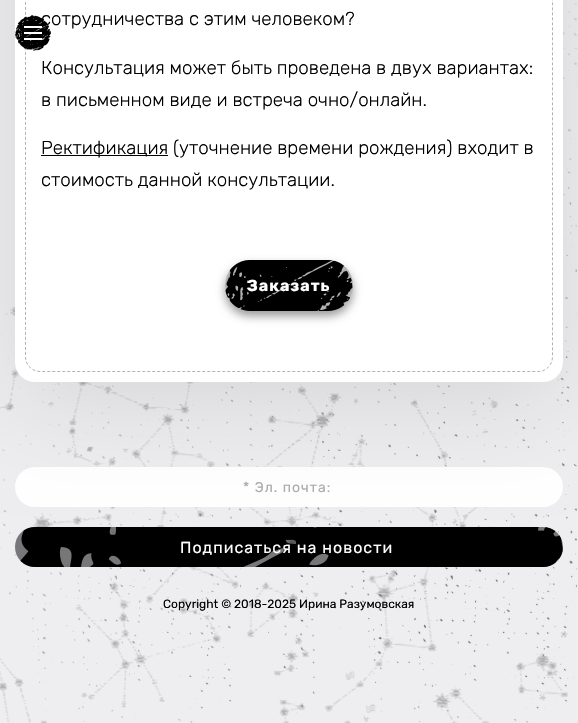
void draw(SkCanvas* canvas) {
	SkPaint paint;
	paint.setAntiAlias(true);
	auto spacedText = [&](const char* s, float x, float y, const SkFont& font, const SkPaint& ink, float letter, float word) {
		std::vector<SkGlyphID> glyphs(font.countText(s, strlen(s), SkTextEncoding::kUTF8));
		std::vector<float> xs(glyphs.size());
		font.textToGlyphs(s, strlen(s), SkTextEncoding::kUTF8, glyphs);
		font.getXPos(glyphs, xs, x);
		float extra = 0;
		for (size_t i = 0; i < glyphs.size(); i++) {
			xs[i] += extra;
			extra += letter + word * (glyphs[i] == font.unicharToGlyph(' '));
		}
		canvas->drawTextBlob(SkTextBlob::MakeFromPosHGlyphs(glyphs, xs, y, font), 0, 0, ink);
	};
	auto svgPath = [&](const char* data, bool evenOdd = false) {
		SkPath result = *SkParsePath::FromSVGString(data);
		if (evenOdd) result.setFillType(SkPathFillType::kEvenOdd);
		return result;
	};
	canvas->clear(0xffeeedf0);
	canvas->drawImageRect(SkImages::DeferredFromEncodedData(SkData::MakeFromFileName("img1.png")), SkRect::MakeXYWH(0, 3, 577, 720), SkSamplingOptions());
	paint.setColor(0xffffffff);
	canvas->drawRoundRect(SkRect::MakeXYWH(15, 467, 548, 40), 20, 20, paint);
	paint.setColor(0x80000000);
	canvas->drawRoundRect(SkRect::MakeXYWH(15, 527, 548, 40), 20, 20, paint);
	canvas->drawImageRect(SkImages::DeferredFromEncodedData(SkData::MakeFromFileName("img4.png")), SkRect::MakeXYWH(20, 527, 543, 40), SkSamplingOptions());
	paint.setColor(0x1a000000);
	paint.setMaskFilter(SkMaskFilter::MakeBlur(kNormal_SkBlurStyle, 50));
	canvas->drawRoundRect(SkRect::MakeXYWH(15, -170, 548, 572), 20, 20, paint);
	paint.setMaskFilter(nullptr);
	paint.setColor(0xffffffff);
	canvas->drawRoundRect(SkRect::MakeXYWH(15, -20, 548, 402), 20, 20, paint);
	paint.setStroke(true);
	paint.setStrokeWidth(1);
	paint.setColor(0xffb3b3b3);
	paint.setPathEffect(SkDashPathEffect::Make({{3, 2}}, 0));
	canvas->drawPath(svgPath("M40-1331.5H538C546-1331.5 552.5-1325 552.5-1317V357C552.5 365 546 371.5 538 371.5H40C32 371.5 25.5 365 25.5 357V-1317C25.5-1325 32-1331.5 40-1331.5Z"), paint);
	paint.setPathEffect(nullptr);
	SkFont f1(fontMgr->matchFamilyStyle("Rubik", SkFontStyle(300, SkFontStyle::kNormal_Width, SkFontStyle::kUpright_Slant)), 18.7);
	f1.setSubpixel(true);
	paint.setStroke(false);
	paint.setColor(0xff000000);
	canvas->drawString("сотрудничества с этим человеком?", 41, 25, f1, paint);
	canvas->drawImageRect(SkImages::DeferredFromEncodedData(SkData::MakeFromFileName("img2.png")), SkRect::MakeXYWH(15, 15, 36, 36), SkSamplingOptions());
	paint.setColor(0xffffffff);
	canvas->drawRect(SkRect::MakeXYWH(24, 26, 18, 2), paint);
	canvas->drawRect(SkRect::MakeXYWH(24, 32, 18, 2), paint);
	canvas->drawRect(SkRect::MakeXYWH(24, 38, 18, 2), paint);
	paint.setColor(0xff000000);
	canvas->drawString("Консультация может быть проведена в двух вариантах:", 41, 74, f1, paint);
	canvas->drawString("в письменном виде и встреча очно/онлайн.", 41, 106, f1, paint);
	canvas->drawRect(SkRect::MakeXYWH(41, 155, 127, 1), paint);
	canvas->drawString("Ректификация (уточнение времени рождения) входит в", 41, 154, f1, paint);
	canvas->drawString("стоимость данной консультации.", 41, 186, f1, paint);
	canvas->save();
	canvas->clipPath(svgPath("M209 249H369V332H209ZM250 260H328C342 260 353 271 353 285V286C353 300 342 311 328 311H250C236 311 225 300 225 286V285C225 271 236 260 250 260Z", true), true);
	paint.setColor(0x66000000);
	paint.setMaskFilter(SkMaskFilter::MakeBlur(kNormal_SkBlurStyle, 5));
	canvas->drawRoundRect(SkRect::MakeXYWH(225, 265, 128, 51), 25, 25, paint);
	paint.setMaskFilter(nullptr);
	canvas->restore();
	paint.setColor(0x4d000000);
	canvas->drawRoundRect(SkRect::MakeXYWH(225, 260, 128, 51), 25, 25, paint);
	canvas->drawImageRect(SkImages::DeferredFromEncodedData(SkData::MakeFromFileName("img3.png")), SkRect::MakeXYWH(225, 260, 128, 51), SkSamplingOptions());
	SkFont f2(fontMgr->matchFamilyStyle("Rubik", SkFontStyle::Bold()), 16);
	f2.setSubpixel(true);
	paint.setColor(0xffffffff);
	spacedText("Заказать", 247, 291, f2, paint, 1, 0);
	SkFont f3(fontMgr->matchFamilyStyle("Rubik", SkFontStyle::Normal()), 14);
	f3.setSubpixel(true);
	paint.setColor(0xffababab);
	spacedText("* Эл. почта:", 243, 492, f3, paint, 1, 0);
	SkFont f4(fontMgr->matchFamilyStyle("Rubik", SkFontStyle::Normal()), 16);
	f4.setSubpixel(true);
	paint.setColor(0xffffffff);
	spacedText("Подписаться на новости", 180, 553, f4, paint, 1, 0);
	SkFont f5(fontMgr->matchFamilyStyle("Rubik", SkFontStyle::Normal()), 12);
	f5.setSubpixel(true);
	paint.setColor(0xff000000);
	canvas->drawString("Copyright © 2018-2025 Ирина Разумовская", 163, 608, f5, paint);
}
